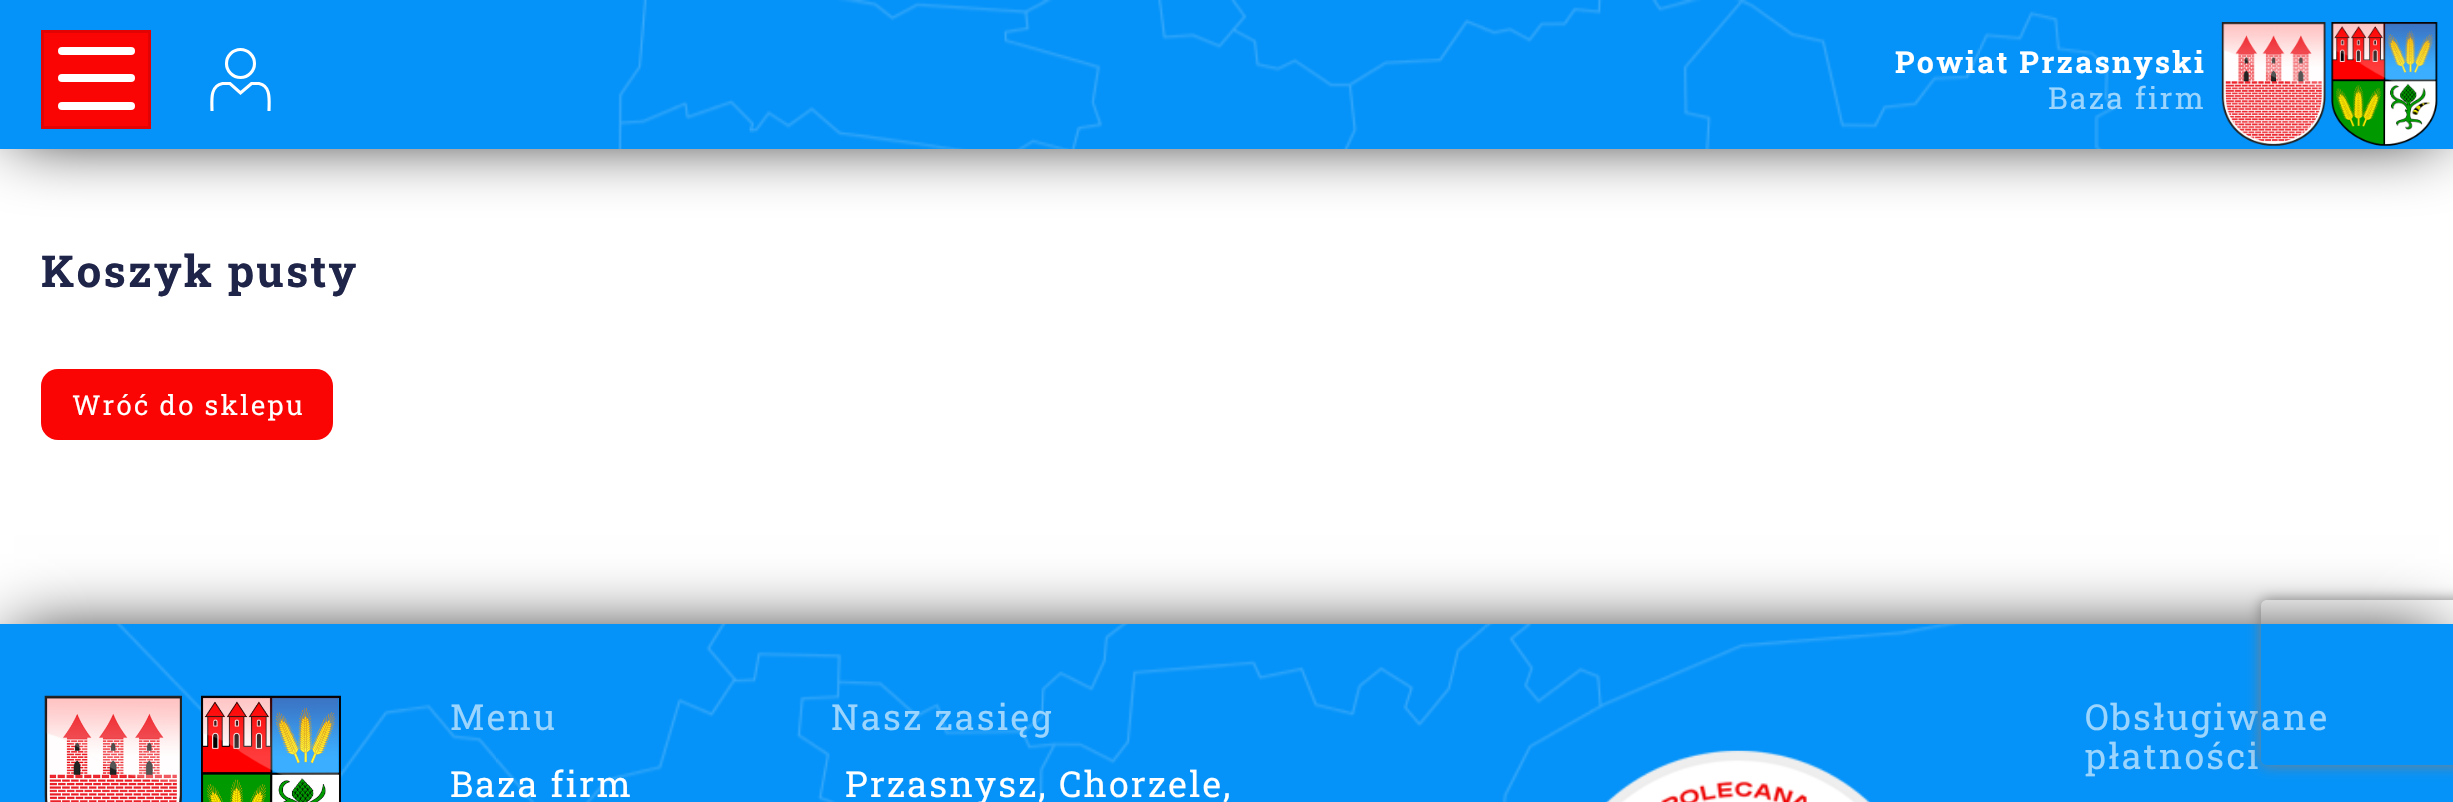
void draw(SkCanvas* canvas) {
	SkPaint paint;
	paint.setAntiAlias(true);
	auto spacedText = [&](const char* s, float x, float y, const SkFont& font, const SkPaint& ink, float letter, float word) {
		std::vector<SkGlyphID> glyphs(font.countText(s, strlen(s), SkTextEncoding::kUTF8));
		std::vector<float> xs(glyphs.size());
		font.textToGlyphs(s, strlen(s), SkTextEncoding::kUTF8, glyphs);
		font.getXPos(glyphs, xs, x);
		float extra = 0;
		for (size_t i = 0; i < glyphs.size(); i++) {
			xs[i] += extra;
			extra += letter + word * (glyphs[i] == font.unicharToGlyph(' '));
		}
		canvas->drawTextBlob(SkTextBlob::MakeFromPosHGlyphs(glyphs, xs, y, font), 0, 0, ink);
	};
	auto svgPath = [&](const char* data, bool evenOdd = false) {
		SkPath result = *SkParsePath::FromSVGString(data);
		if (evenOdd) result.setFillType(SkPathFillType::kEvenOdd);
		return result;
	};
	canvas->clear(0xffffffff);
	paint.setColor(0xff000000);
	paint.setMaskFilter(SkMaskFilter::MakeBlur(kNormal_SkBlurStyle, 34.5));
	canvas->drawRect(SkRect::MakeXYWH(14, 14, 2425, 121), paint);
	paint.setMaskFilter(nullptr);
	paint.setColor(0xff0593f9);
	canvas->drawRect(SkRect::MakeXYWH(0, 0, 2453, 149), paint);
	canvas->drawImageRect(SkImages::DeferredFromEncodedData(SkData::MakeFromFileName("img1.png")), SkRect::MakeXYWH(618, 0, 1499, 149), SkSamplingOptions());
	paint.setColor(0xfffb0404);
	canvas->drawRect(SkRect::MakeXYWH(42.5, 31.5, 107, 96), paint);
	paint.setStroke(true);
	paint.setStrokeWidth(3);
	paint.setColor(0xffe20404);
	canvas->drawRect(SkRect::MakeXYWH(42.5, 31.5, 107, 96), paint);
	paint.setStroke(false);
	paint.setColor(0xffffffff);
	canvas->drawRoundRect(SkRect::MakeXYWH(58, 74, 77, 8), 4, 4, paint);
	canvas->drawRoundRect(SkRect::MakeXYWH(58, 47, 77, 8), 4, 4, paint);
	canvas->drawRoundRect(SkRect::MakeXYWH(58, 102, 77, 8), 4, 4, paint);
	paint.setStroke(true);
	paint.setStrokeWidth(3.1);
	canvas->drawCircle(240.5, 63.5, 14, paint);
	canvas->drawPath(svgPath("M212 111C212 101 209.5 86 222.5 83.5H230L240.5 93L251.5 83.5H259C271.5 86 269 101 269 111"), paint);
	SkFont f1(fontMgr->matchFamilyStyle("Roboto Slab", SkFontStyle::Bold()), 30.25);
	f1.setSubpixel(true);
	paint.setStroke(false);
	spacedText("Powiat Przasnyski", 1895, 73, f1, paint, 2.25, 0);
	SkFont f2(fontMgr->matchFamilyStyle("Roboto Slab", SkFontStyle::Normal()), 30.25);
	f2.setSubpixel(true);
	paint.setColor(0xff9bd4fd);
	spacedText("Baza firm", 2048, 109, f2, paint, 2.25, 0);
	canvas->drawImageRect(SkImages::DeferredFromEncodedData(SkData::MakeFromFileName("img2.png")), SkRect::MakeXYWH(2221, 22, 105, 124), SkSamplingOptions());
	canvas->drawImageRect(SkImages::DeferredFromEncodedData(SkData::MakeFromFileName("img3.png")), SkRect::MakeXYWH(2331, 22, 107, 124), SkSamplingOptions());
	SkFont f3(fontMgr->matchFamilyStyle("Roboto Slab", SkFontStyle::Bold()), 44);
	f3.setSubpixel(true);
	paint.setColor(0xff1f2449);
	spacedText("Koszyk pusty", 41, 287, f3, paint, 2.25, 0);
	paint.setColor(0xfffb0404);
	canvas->drawRoundRect(SkRect::MakeXYWH(41, 369, 292, 71), 17, 17, paint);
	SkFont f4(fontMgr->matchFamilyStyle("Roboto Slab", SkFontStyle::Normal()), 27.5);
	f4.setSubpixel(true);
	paint.setColor(0xffffffff);
	spacedText("Wróć do sklepu", 72, 415, f4, paint, 2.25, 0);
	paint.setColor(0xff000000);
	paint.setMaskFilter(SkMaskFilter::MakeBlur(kNormal_SkBlurStyle, 34.5));
	canvas->drawRect(SkRect::MakeXYWH(14, 638, 2425, 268), paint);
	paint.setMaskFilter(nullptr);
	paint.setColor(0xff0593f9);
	canvas->drawRect(SkRect::MakeXYWH(0, 624, 2453, 178), paint);
	canvas->drawImageRect(SkImages::DeferredFromEncodedData(SkData::MakeFromFileName("img4.png")), SkRect::MakeXYWH(116, 624, 1847, 178), SkSamplingOptions());
	canvas->drawImageRect(SkImages::DeferredFromEncodedData(SkData::MakeFromFileName("img5.png")), SkRect::MakeXYWH(44, 695, 138, 107), SkSamplingOptions());
	canvas->drawImageRect(SkImages::DeferredFromEncodedData(SkData::MakeFromFileName("img6.png")), SkRect::MakeXYWH(201, 695, 140, 107), SkSamplingOptions());
	SkFont f5(fontMgr->matchFamilyStyle("Roboto Slab", SkFontStyle::Normal()), 35.75);
	f5.setSubpixel(true);
	paint.setColor(0xff9bd4fd);
	spacedText("Menu", 450, 730, f5, paint, 2.25, 0);
	paint.setColor(0xffffffff);
	spacedText("Baza firm", 450, 797, f5, paint, 2.25, 0);
	paint.setColor(0xff9bd4fd);
	spacedText("Nasz zasięg", 831, 730, f5, paint, 2.25, 0);
	paint.setColor(0xffffffff);
	spacedText("Przasnysz, Chorzele,", 845, 797, f5, paint, 2.25, 0);
	canvas->drawImageRect(SkImages::DeferredFromEncodedData(SkData::MakeFromFileName("img7.png")), SkRect::MakeXYWH(1605, 750, 266, 52), SkSamplingOptions());
	paint.setColor(0xff9bd4fd);
	spacedText("Obsługiwane", 2085, 730, f5, paint, 2.25, 0);
	spacedText("płatności", 2085, 769, f5, paint, 2.25, 0);
	canvas->save();
	canvas->clipPath(svgPath("M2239 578H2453V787H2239ZM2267 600H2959C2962.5 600 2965 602.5 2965 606V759C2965 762.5 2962.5 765 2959 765H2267C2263.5 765 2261 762.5 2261 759V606C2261 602.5 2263.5 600 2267 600Z", true), true);
	paint.setColor(0xff808080);
	paint.setMaskFilter(SkMaskFilter::MakeBlur(kNormal_SkBlurStyle, 7));
	canvas->drawRoundRect(SkRect::MakeXYWH(2261, 600, 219, 165), 6, 6, paint);
	paint.setMaskFilter(nullptr);
	canvas->restore();
}
